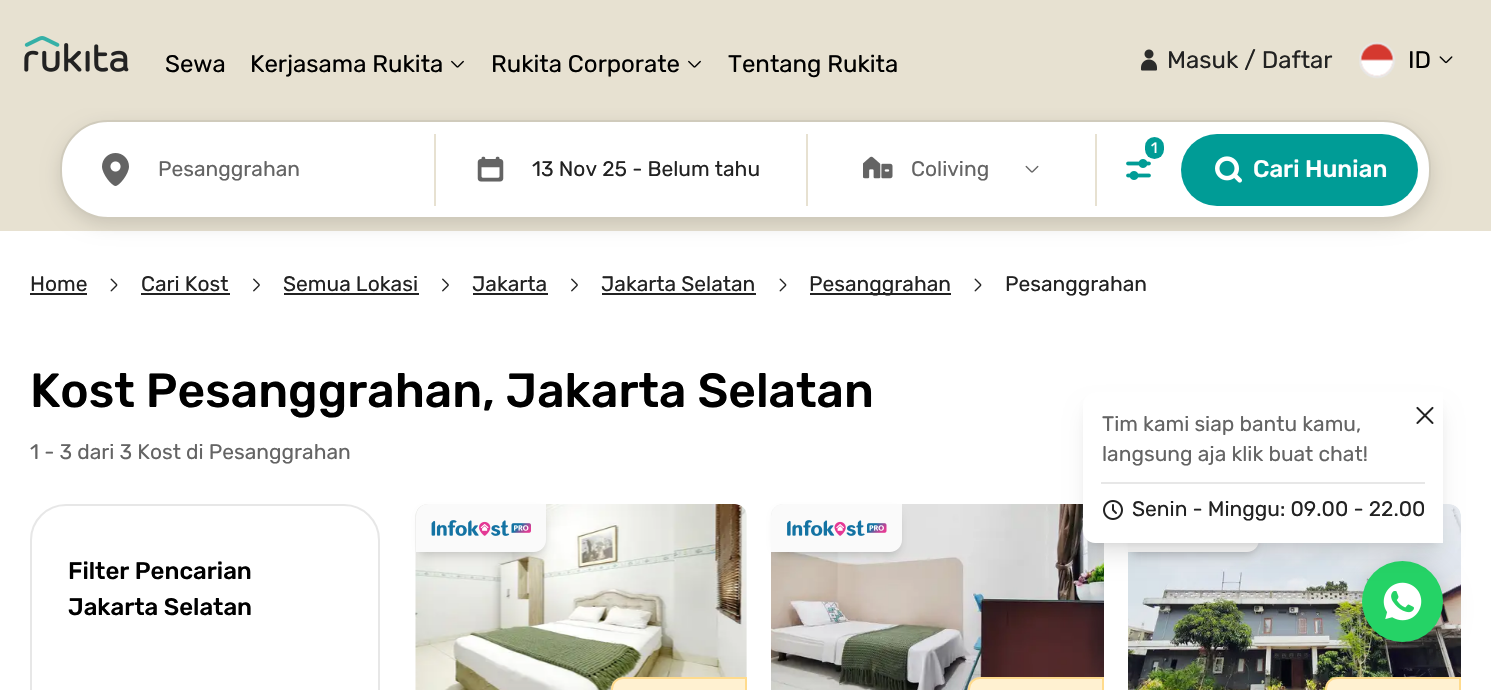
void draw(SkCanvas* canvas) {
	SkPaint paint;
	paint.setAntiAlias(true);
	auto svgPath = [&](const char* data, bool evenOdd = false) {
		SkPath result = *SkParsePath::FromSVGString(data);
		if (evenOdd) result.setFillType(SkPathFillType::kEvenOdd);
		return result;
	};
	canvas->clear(0xffffffff);
	paint.setColor(0xffe7e1d1);
	canvas->drawRect(SkRect::MakeXYWH(0, 108, 1491, 123), paint);
	paint.setColor(0x1f000000);
	paint.setMaskFilter(SkMaskFilter::MakeBlur(kNormal_SkBlurStyle, 9));
	canvas->drawRoundRect(SkRect::MakeXYWH(60, 126, 1371, 99), 48, 48, paint);
	paint.setMaskFilter(nullptr);
	paint.setColor(0xffe7e1d1);
	canvas->drawRect(SkRect::MakeXYWH(0, 0, 1491, 108), paint);
	canvas->drawImageRect(SkImages::DeferredFromEncodedData(SkData::MakeFromFileName("img1.png")), SkRect::MakeXYWH(24, 36, 105, 36), SkSamplingOptions());
	SkFont f1(fontMgr->matchFamilyStyle("Rubik", SkFontStyle::Normal()), 24);
	f1.setSubpixel(true);
	paint.setColor(0xff000000);
	canvas->drawString("Sewa", 165, 72, f1, paint);
	canvas->drawString("Kerjasama Rukita", 250, 72, f1, paint);
	canvas->drawImageRect(SkImages::DeferredFromEncodedData(SkData::MakeFromFileName("img2.png")), SkRect::MakeXYWH(451, 60, 13, 8), SkSamplingOptions());
	canvas->drawString("Rukita Corporate", 491, 72, f1, paint);
	canvas->drawImageRect(SkImages::DeferredFromEncodedData(SkData::MakeFromFileName("img2.png")), SkRect::MakeXYWH(688, 60, 13, 8), SkSamplingOptions());
	canvas->drawString("Tentang Rukita", 728, 72, f1, paint);
	canvas->drawImageRect(SkImages::DeferredFromEncodedData(SkData::MakeFromFileName("img3.png")), SkRect::MakeXYWH(1141, 49, 16, 22), SkSamplingOptions());
	paint.setColor(0xff222222);
	canvas->drawString("Masuk / Daftar", 1167, 68, f1, paint);
	canvas->drawImageRect(SkImages::DeferredFromEncodedData(SkData::MakeFromFileName("img4.png")), SkRect::MakeXYWH(1359, 42, 37, 37), SkSamplingOptions());
	paint.setColor(0xff000000);
	canvas->drawString("ID", 1408, 68, f1, paint);
	canvas->drawImageRect(SkImages::DeferredFromEncodedData(SkData::MakeFromFileName("img5.png")), SkRect::MakeXYWH(1439, 56, 14, 8), SkSamplingOptions());
	paint.setColor(0xffffffff);
	canvas->drawRoundRect(SkRect::MakeXYWH(61, 121, 1369, 97), 47, 47, paint);
	paint.setStroke(true);
	paint.setStrokeWidth(2);
	paint.setColor(0xffd0cbbc);
	canvas->drawRoundRect(SkRect::MakeXYWH(61, 121, 1369, 97), 47, 47, paint);
	paint.setStroke(false);
	paint.setColor(0xffe7e1d1);
	canvas->drawRect(SkRect::MakeXYWH(434, 134, 2, 72), paint);
	canvas->drawRect(SkRect::MakeXYWH(806, 134, 2, 72), paint);
	canvas->drawRect(SkRect::MakeXYWH(1095, 134, 2, 72), paint);
	paint.setColor(0xff009c96);
	canvas->drawRoundRect(SkRect::MakeXYWH(1145, 137, 19, 22), 9.5, 9.5, paint);
	SkFont f2(fontMgr->matchFamilyStyle("Rubik", SkFontStyle::Normal()), 15);
	f2.setSubpixel(true);
	paint.setColor(0xffffffff);
	canvas->drawString("1", 1151, 153, f2, paint);
	canvas->drawImageRect(SkImages::DeferredFromEncodedData(SkData::MakeFromFileName("img6.png")), SkRect::MakeXYWH(1126, 159, 25, 21), SkSamplingOptions());
	canvas->drawImageRect(SkImages::DeferredFromEncodedData(SkData::MakeFromFileName("img7.png")), SkRect::MakeXYWH(102, 153, 27, 33), SkSamplingOptions());
	SkFont f3(fontMgr->matchFamilyStyle("Rubik", SkFontStyle::Normal()), 21);
	f3.setSubpixel(true);
	paint.setColor(0xff646464);
	canvas->drawString("Pesanggrahan", 158, 176, f3, paint);
	canvas->drawImageRect(SkImages::DeferredFromEncodedData(SkData::MakeFromFileName("img8.png")), SkRect::MakeXYWH(477, 156, 27, 26), SkSamplingOptions());
	paint.setColor(0xff222222);
	canvas->drawString("13 Nov 25 - Belum tahu", 532, 176, f3, paint);
	canvas->drawImageRect(SkImages::DeferredFromEncodedData(SkData::MakeFromFileName("img9.png")), SkRect::MakeXYWH(863, 156, 30, 23), SkSamplingOptions());
	paint.setColor(0xff646464);
	canvas->drawString("Coliving", 911, 176, f3, paint);
	canvas->drawImageRect(SkImages::DeferredFromEncodedData(SkData::MakeFromFileName("img10.png")), SkRect::MakeXYWH(1025, 165, 14, 8), SkSamplingOptions());
	paint.setColor(0xff009c96);
	canvas->drawRoundRect(SkRect::MakeXYWH(1181, 134, 237, 72), 36, 36, paint);
	canvas->drawImageRect(SkImages::DeferredFromEncodedData(SkData::MakeFromFileName("img11.png")), SkRect::MakeXYWH(1215, 156, 27, 27), SkSamplingOptions());
	SkFont f4(fontMgr->matchFamilyStyle("Rubik", SkFontStyle(500, SkFontStyle::kNormal_Width, SkFontStyle::kUpright_Slant)), 24);
	f4.setSubpixel(true);
	paint.setColor(0xffffffff);
	canvas->drawString("Cari Hunian", 1253, 177, f4, paint);
	paint.setColor(0xff222222);
	canvas->drawString("Home", 30, 291, f3, paint);
	canvas->drawRect(SkRect::MakeXYWH(30, 293, 57, 2), paint);
	canvas->drawImageRect(SkImages::DeferredFromEncodedData(SkData::MakeFromFileName("img12.png")), SkRect::MakeXYWH(110, 278, 8, 14), SkSamplingOptions());
	canvas->drawString("Cari Kost", 141, 291, f3, paint);
	canvas->drawRect(SkRect::MakeXYWH(141, 293, 89, 2), paint);
	canvas->drawImageRect(SkImages::DeferredFromEncodedData(SkData::MakeFromFileName("img13.png")), SkRect::MakeXYWH(253, 278, 7, 14), SkSamplingOptions());
	canvas->drawString("Semua Lokasi", 283, 291, f3, paint);
	canvas->drawRect(SkRect::MakeXYWH(284, 293, 135, 2), paint);
	canvas->drawImageRect(SkImages::DeferredFromEncodedData(SkData::MakeFromFileName("img13.png")), SkRect::MakeXYWH(442, 278, 7, 14), SkSamplingOptions());
	canvas->drawString("Jakarta", 472, 291, f3, paint);
	canvas->drawRect(SkRect::MakeXYWH(473, 293, 75, 2), paint);
	canvas->drawImageRect(SkImages::DeferredFromEncodedData(SkData::MakeFromFileName("img13.png")), SkRect::MakeXYWH(571, 278, 7, 14), SkSamplingOptions());
	canvas->drawString("Jakarta Selatan", 601, 291, f3, paint);
	canvas->drawRect(SkRect::MakeXYWH(602, 293, 154, 2), paint);
	canvas->drawImageRect(SkImages::DeferredFromEncodedData(SkData::MakeFromFileName("img12.png")), SkRect::MakeXYWH(779, 278, 8, 14), SkSamplingOptions());
	canvas->drawRect(SkRect::MakeXYWH(810, 293, 141, 2), paint);
	canvas->drawString("Pesanggrahan", 809, 291, f3, paint);
	canvas->drawImageRect(SkImages::DeferredFromEncodedData(SkData::MakeFromFileName("img12.png")), SkRect::MakeXYWH(974, 278, 8, 14), SkSamplingOptions());
	canvas->drawString("Pesanggrahan", 1005, 291, f3, paint);
	SkFont f5(fontMgr->matchFamilyStyle("Rubik", SkFontStyle(500, SkFontStyle::kNormal_Width, SkFontStyle::kUpright_Slant)), 48);
	f5.setSubpixel(true);
	paint.setColor(0xff000000);
	canvas->drawString("Kost Pesanggrahan, Jakarta Selatan", 30, 407, f5, paint);
	paint.setColor(0xff646464);
	canvas->drawString("1 - 3 dari 3 Kost di Pesanggrahan", 30, 459, f3, paint);
	paint.setStroke(true);
	paint.setColor(0xffe7e7e7);
	canvas->drawRoundRect(SkRect::MakeXYWH(31, 505, 348, 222), 35, 35, paint);
	paint.setStroke(false);
	paint.setColor(0xff000000);
	canvas->drawString("Filter Pencarian", 68, 579, f4, paint);
	canvas->drawString("Jakarta Selatan", 68, 615, f4, paint);
	canvas->drawImageRect(SkImages::DeferredFromEncodedData(SkData::MakeFromFileName("img15.png")), SkRect::MakeXYWH(415, 504, 332, 186), SkSamplingOptions());
	paint.setColor(0x1a000000);
	paint.setMaskFilter(SkMaskFilter::MakeBlur(kNormal_SkBlurStyle, 3));
	canvas->drawRoundRect(SkRect::MakeXYWH(419, 510, 124, 42), 9, 9, paint);
	paint.setMaskFilter(nullptr);
	canvas->save();
	canvas->clipPath(svgPath("M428 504H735C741.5 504 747 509.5 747 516V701C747 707.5 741.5 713 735 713H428C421.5 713 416 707.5 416 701V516C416 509.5 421.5 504 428 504Z"), true);
	paint.setMaskFilter(SkMaskFilter::MakeBlur(kNormal_SkBlurStyle, 4.5));
	canvas->drawRoundRect(SkRect::MakeXYWH(417, 512, 128, 45), 11, 11, paint);
	paint.setMaskFilter(nullptr);
	canvas->restore();
	paint.setColor(0xfffafafa);
	canvas->drawPath(svgPath("M428 504H546V540C546 546.5 540.5 552 534 552H416V516C416 509.5 421.5 504 428 504Z"), paint);
	canvas->drawImageRect(SkImages::DeferredFromEncodedData(SkData::MakeFromFileName("img14.png")), SkRect::MakeXYWH(431, 520, 100, 16), SkSamplingOptions());
	paint.setColor(0xfffff1d1);
	canvas->drawPath(svgPath("M623 678H746V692C746 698 741 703 735 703H612V689C612 683 617 678 623 678Z"), paint);
	paint.setStroke(true);
	paint.setColor(0xffffdb8d);
	canvas->drawPath(svgPath("M623 678H746V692C746 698 741 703 735 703H612V689C612 683 617 678 623 678Z"), paint);
	canvas->drawImageRect(SkImages::DeferredFromEncodedData(SkData::MakeFromFileName("img17.png")), SkRect::MakeXYWH(771, 504, 333, 186), SkSamplingOptions());
	paint.setStroke(false);
	paint.setColor(0x1a000000);
	paint.setMaskFilter(SkMaskFilter::MakeBlur(kNormal_SkBlurStyle, 3));
	canvas->drawRoundRect(SkRect::MakeXYWH(774, 510, 125, 42), 9, 9, paint);
	paint.setMaskFilter(nullptr);
	canvas->save();
	canvas->clipPath(svgPath("M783 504H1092C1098.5 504 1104 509.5 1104 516V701C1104 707.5 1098.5 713 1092 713H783C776.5 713 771 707.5 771 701V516C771 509.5 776.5 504 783 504Z"), true);
	paint.setMaskFilter(SkMaskFilter::MakeBlur(kNormal_SkBlurStyle, 4.5));
	canvas->drawRoundRect(SkRect::MakeXYWH(773, 512, 127, 45), 11, 11, paint);
	paint.setMaskFilter(nullptr);
	canvas->restore();
	paint.setColor(0xfffafafa);
	canvas->drawPath(svgPath("M783 504H902V540C902 546.5 896.5 552 890 552H771V516C771 509.5 776.5 504 783 504Z"), paint);
	canvas->drawImageRect(SkImages::DeferredFromEncodedData(SkData::MakeFromFileName("img16.png")), SkRect::MakeXYWH(787, 520, 100, 16), SkSamplingOptions());
	paint.setColor(0xfffff1d1);
	canvas->drawPath(svgPath("M980 678H1103V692C1103 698 1098 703 1092 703H969V689C969 683 974 678 980 678Z"), paint);
	paint.setStroke(true);
	paint.setColor(0xffffdb8d);
	canvas->drawPath(svgPath("M980 678H1103V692C1103 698 1098 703 1092 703H969V689C969 683 974 678 980 678Z"), paint);
	canvas->drawImageRect(SkImages::DeferredFromEncodedData(SkData::MakeFromFileName("img18.png")), SkRect::MakeXYWH(1128, 504, 333, 186), SkSamplingOptions());
	paint.setStroke(false);
	paint.setColor(0x1a000000);
	paint.setMaskFilter(SkMaskFilter::MakeBlur(kNormal_SkBlurStyle, 3));
	canvas->drawRoundRect(SkRect::MakeXYWH(1131, 510, 125, 42), 9, 9, paint);
	paint.setMaskFilter(nullptr);
	canvas->save();
	canvas->clipPath(svgPath("M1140 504H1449C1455.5 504 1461 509.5 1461 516V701C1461 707.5 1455.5 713 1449 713H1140C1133.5 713 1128 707.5 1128 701V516C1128 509.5 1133.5 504 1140 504Z"), true);
	paint.setMaskFilter(SkMaskFilter::MakeBlur(kNormal_SkBlurStyle, 4.5));
	canvas->drawRoundRect(SkRect::MakeXYWH(1130, 512, 127, 45), 11, 11, paint);
	paint.setMaskFilter(nullptr);
	canvas->restore();
	paint.setColor(0xfffafafa);
	canvas->drawPath(svgPath("M1140 504H1259V540C1259 546.5 1253.5 552 1247 552H1128V516C1128 509.5 1133.5 504 1140 504Z"), paint);
	paint.setColor(0xfffff1d1);
	canvas->drawPath(svgPath("M1337 678H1460V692C1460 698 1455 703 1449 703H1326V689C1326 683 1331 678 1337 678Z"), paint);
	paint.setStroke(true);
	paint.setColor(0xffffdb8d);
	canvas->drawPath(svgPath("M1337 678H1460V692C1460 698 1455 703 1449 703H1326V689C1326 683 1331 678 1337 678Z"), paint);
	paint.setStroke(false);
	paint.setColor(0x1a000000);
	paint.setMaskFilter(SkMaskFilter::MakeBlur(kNormal_SkBlurStyle, 4.5));
	canvas->drawRoundRect(SkRect::MakeXYWH(1089, 404, 348, 139), 6, 6, paint);
	paint.setMaskFilter(nullptr);
	paint.setColor(0x26000000);
	paint.setMaskFilter(SkMaskFilter::MakeBlur(kNormal_SkBlurStyle, 11));
	canvas->drawRoundRect(SkRect::MakeXYWH(1358, 564, 90, 90), 45, 45, paint);
	paint.setMaskFilter(nullptr);
	paint.setColor(0xff25d366);
	canvas->drawCircle(1402.5, 601.5, 40.5, paint);
	canvas->drawImageRect(SkImages::DeferredFromEncodedData(SkData::MakeFromFileName("img21.png")), SkRect::MakeXYWH(1383, 582, 39, 39), SkSamplingOptions());
	paint.setColor(0x1a000000);
	paint.setMaskFilter(SkMaskFilter::MakeBlur(kNormal_SkBlurStyle, 11));
	canvas->drawRoundRect(SkRect::MakeXYWH(1088, 411, 351, 143), 8, 8, paint);
	paint.setMaskFilter(nullptr);
	paint.setColor(0xffffffff);
	canvas->drawPath(svgPath("M1095 392H1443V543H1095C1088.5 543 1083 537.5 1083 531V404C1083 397.5 1088.5 392 1095 392Z"), paint);
	paint.setColor(0xff646464);
	canvas->drawString("Tim kami siap bantu kamu,", 1102, 431, f3, paint);
	canvas->drawString("langsung aja klik buat chat!", 1102, 461, f3, paint);
	canvas->drawImageRect(SkImages::DeferredFromEncodedData(SkData::MakeFromFileName("img19.png")), SkRect::MakeXYWH(1416, 406, 18, 18), SkSamplingOptions());
	paint.setColor(0xffe7e7e7);
	canvas->drawRect(SkRect::MakeXYWH(1101, 482, 324, 2), paint);
	canvas->drawImageRect(SkImages::DeferredFromEncodedData(SkData::MakeFromFileName("img20.png")), SkRect::MakeXYWH(1103, 500, 20, 20), SkSamplingOptions());
	paint.setColor(0xff222222);
	canvas->drawString("Senin - Minggu: 09.00 - 22.00", 1132, 516, f3, paint);
}
